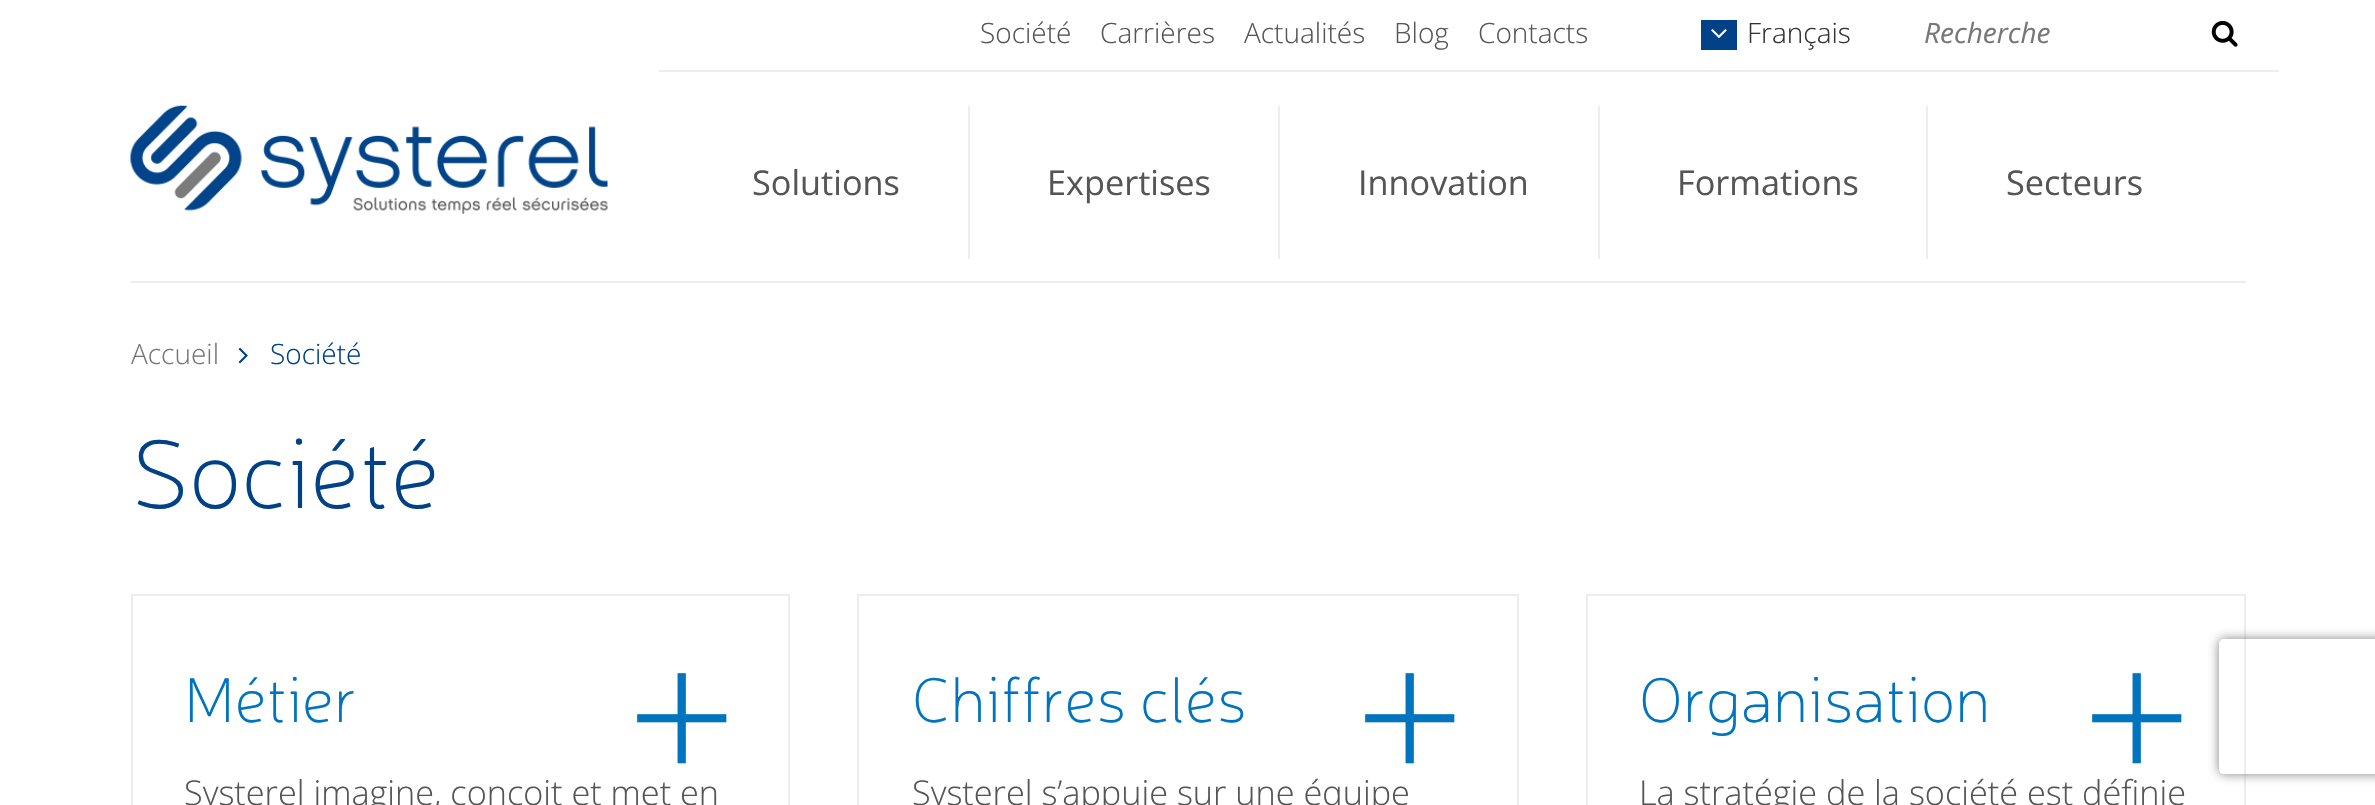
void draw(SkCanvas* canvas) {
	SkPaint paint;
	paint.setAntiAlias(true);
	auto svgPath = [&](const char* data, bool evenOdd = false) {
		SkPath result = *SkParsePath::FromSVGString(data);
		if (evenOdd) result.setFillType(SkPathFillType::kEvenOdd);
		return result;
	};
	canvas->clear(0xffffffff);
	paint.setColor(0xffededee);
	canvas->drawRect(SkRect::MakeXYWH(659, 70, 1620, 2), paint);
	SkFont f1(fontMgr->matchFamilyStyle("Open Sans", SkFontStyle(300, SkFontStyle::kNormal_Width, SkFontStyle::kUpright_Slant)), 28);
	f1.setSubpixel(true);
	paint.setColor(0xff555555);
	canvas->drawString("Société", 980, 43, f1, paint);
	canvas->drawString("Carrières", 1100, 43, f1, paint);
	canvas->drawString("Actualités", 1244, 43, f1, paint);
	canvas->drawString("Blog", 1394, 43, f1, paint);
	canvas->drawString("Contacts", 1478, 43, f1, paint);
	paint.setColor(0xff004187);
	canvas->drawRect(SkRect::MakeXYWH(1701, 20, 36, 30), paint);
	canvas->drawImageRect(SkImages::DeferredFromEncodedData(SkData::MakeFromFileName("img1.png")), SkRect::MakeXYWH(1711, 29, 16, 9), SkSamplingOptions());
	paint.setColor(0xff333333);
	canvas->drawString("Français", 1747, 43, f1, paint);
	SkFont f2(fontMgr->matchFamilyStyle("Open Sans", SkFontStyle::Italic()), 28);
	f2.setSubpixel(true);
	paint.setColor(0xff777777);
	canvas->drawString("Recherche", 1924, 43, f2, paint);
	canvas->drawImageRect(SkImages::DeferredFromEncodedData(SkData::MakeFromFileName("img2.png")), SkRect::MakeXYWH(2211, 20, 27, 27), SkSamplingOptions());
	canvas->drawImageRect(SkImages::DeferredFromEncodedData(SkData::MakeFromFileName("img3.png")), SkRect::MakeXYWH(130, 105, 478, 109), SkSamplingOptions());
	paint.setColor(0xffededee);
	canvas->drawRect(SkRect::MakeXYWH(968, 106, 2, 153), paint);
	SkFont f3(fontMgr->matchFamilyStyle("Open Sans", SkFontStyle::Normal()), 34.25);
	f3.setSubpixel(true);
	paint.setColor(0xff555555);
	canvas->drawString("Solutions", 752, 195, f3, paint);
	paint.setColor(0xffededee);
	canvas->drawRect(SkRect::MakeXYWH(1278, 106, 2, 153), paint);
	paint.setColor(0xff555555);
	canvas->drawString("Expertises", 1047, 195, f3, paint);
	paint.setColor(0xffededee);
	canvas->drawRect(SkRect::MakeXYWH(1598, 106, 2, 153), paint);
	paint.setColor(0xff555555);
	canvas->drawString("Innovation", 1358, 195, f3, paint);
	paint.setColor(0xffededee);
	canvas->drawRect(SkRect::MakeXYWH(1926, 106, 2, 153), paint);
	paint.setColor(0xff555555);
	canvas->drawString("Formations", 1677, 195, f3, paint);
	canvas->drawString("Secteurs", 2006, 195, f3, paint);
	paint.setColor(0xffededee);
	canvas->drawRect(SkRect::MakeXYWH(131, 281, 2115, 2), paint);
	paint.setColor(0xff777777);
	canvas->drawString("Accueil", 131, 364, f1, paint);
	canvas->drawImageRect(SkImages::DeferredFromEncodedData(SkData::MakeFromFileName("img4.png")), SkRect::MakeXYWH(238, 347, 10, 17), SkSamplingOptions());
	paint.setColor(0xff004187);
	canvas->drawString("Société", 270, 364, f1, paint);
	SkFont f4(fontMgr->matchFamilyStyle("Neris", SkFontStyle(200, SkFontStyle::kNormal_Width, SkFontStyle::kUpright_Slant)), 98.5);
	f4.setSubpixel(true);
	canvas->drawString("Société", 131, 508, f4, paint);
	paint.setStroke(true);
	paint.setStrokeWidth(2);
	paint.setColor(0xffededee);
	canvas->drawRect(SkRect::MakeXYWH(132, 595, 657, 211), paint);
	SkFont f5(fontMgr->matchFamilyStyle("Neris", SkFontStyle(200, SkFontStyle::kNormal_Width, SkFontStyle::kUpright_Slant)), 64);
	f5.setSubpixel(true);
	paint.setStroke(false);
	paint.setColor(0xff0074bf);
	canvas->drawString("Métier", 184, 722, f5, paint);
	SkFont f6(fontMgr->matchFamilyStyle("Open Sans", SkFontStyle(300, SkFontStyle::kNormal_Width, SkFontStyle::kUpright_Slant)), 192);
	f6.setSubpixel(true);
	canvas->drawString("+", 627, 786, f6, paint);
	SkFont f7(fontMgr->matchFamilyStyle("Open Sans", SkFontStyle(300, SkFontStyle::kNormal_Width, SkFontStyle::kUpright_Slant)), 34.25);
	f7.setSubpixel(true);
	paint.setColor(0xff555555);
	canvas->drawString("Systerel imagine, conçoit et met en", 184, 805, f7, paint);
	paint.setStroke(true);
	paint.setColor(0xffededee);
	canvas->drawRect(SkRect::MakeXYWH(858, 595, 660, 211), paint);
	paint.setStroke(false);
	paint.setColor(0xff0074bf);
	canvas->drawString("Chiffres clés", 912, 722, f5, paint);
	canvas->drawString("+", 1355, 786, f6, paint);
	paint.setColor(0xff555555);
	canvas->drawString("Systerel s’appuie sur une équipe", 912, 805, f7, paint);
	paint.setStroke(true);
	paint.setColor(0xffededee);
	canvas->drawRect(SkRect::MakeXYWH(1587, 595, 658, 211), paint);
	paint.setStroke(false);
	paint.setColor(0xff0074bf);
	canvas->drawString("Organisation", 1639, 722, f5, paint);
	canvas->drawString("+", 2082, 786, f6, paint);
	paint.setColor(0xff555555);
	canvas->drawString("La stratégie de la société est définie", 1639, 805, f7, paint);
	canvas->save();
	canvas->clipPath(svgPath("M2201 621H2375V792H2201ZM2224 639H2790C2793 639 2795 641 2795 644V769C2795 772 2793 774 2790 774H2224C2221 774 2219 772 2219 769V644C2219 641 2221 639 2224 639Z", true), true);
	paint.setColor(0xff808080);
	paint.setMaskFilter(SkMaskFilter::MakeBlur(kNormal_SkBlurStyle, 5.5));
	canvas->drawRoundRect(SkRect::MakeXYWH(2219, 639, 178, 135), 5, 5, paint);
	paint.setMaskFilter(nullptr);
	canvas->restore();
}
